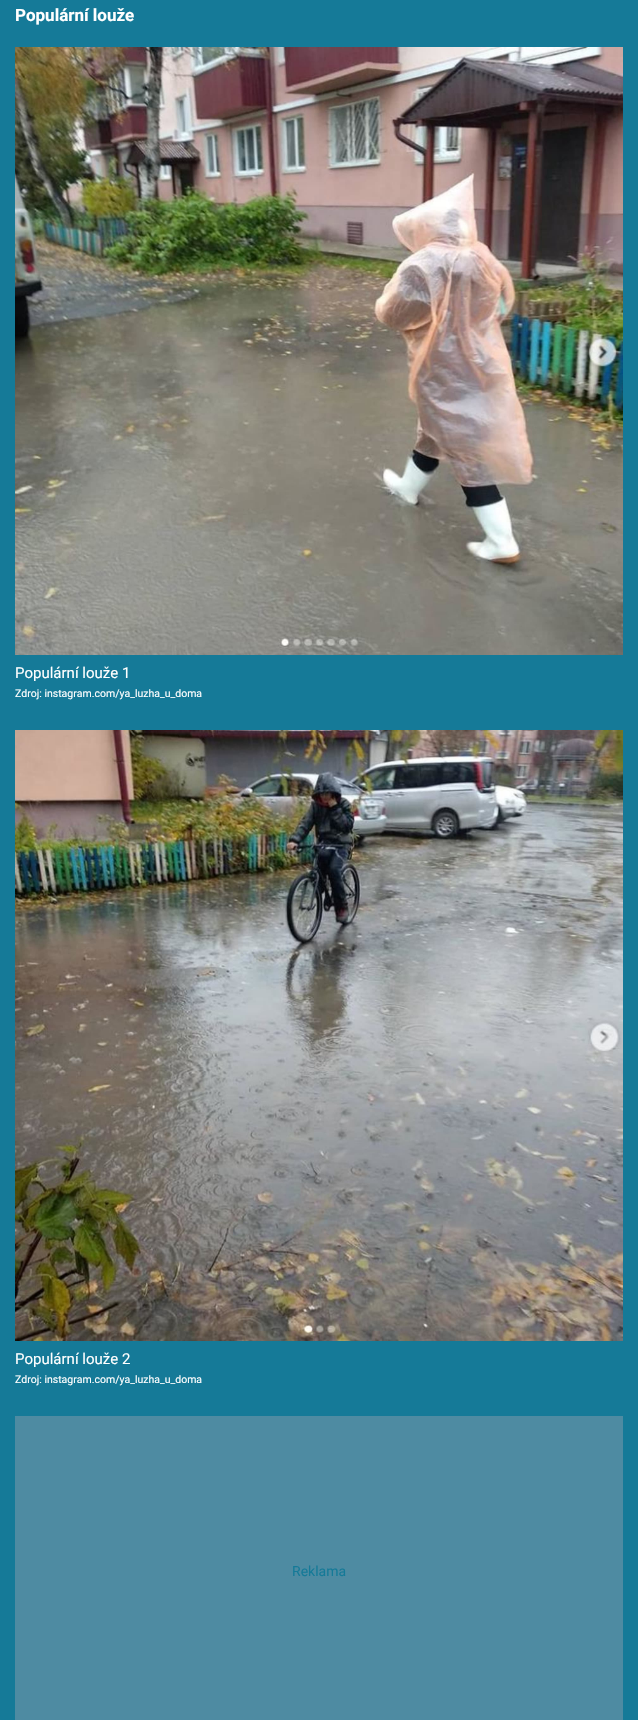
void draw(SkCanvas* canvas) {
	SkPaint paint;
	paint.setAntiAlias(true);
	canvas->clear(0xff157a98);
	SkFont f1(fontMgr->matchFamilyStyle("Roboto", SkFontStyle::Bold()), 17);
	f1.setSubpixel(true);
	paint.setColor(0xffffffff);
	canvas->drawString("Populární louže", 15, 21, f1, paint);
	canvas->drawImageRect(SkImages::DeferredFromEncodedData(SkData::MakeFromFileName("img1.png")), SkRect::MakeXYWH(15, 47, 608, 608), SkSamplingOptions());
	SkFont f2(fontMgr->matchFamilyStyle("Roboto", SkFontStyle::Normal()), 15);
	f2.setSubpixel(true);
	canvas->drawString("Populární louže 1", 15, 678, f2, paint);
	SkFont f3(fontMgr->matchFamilyStyle("Roboto", SkFontStyle::Normal()), 10.5);
	f3.setSubpixel(true);
	canvas->drawString("Zdroj: instagram.com/ya_luzha_u_doma", 15, 697, f3, paint);
	canvas->drawImageRect(SkImages::DeferredFromEncodedData(SkData::MakeFromFileName("img2.png")), SkRect::MakeXYWH(15, 730, 608, 611), SkSamplingOptions());
	canvas->drawString("Populární louže 2", 15, 1364, f2, paint);
	canvas->drawString("Zdroj: instagram.com/ya_luzha_u_doma", 15, 1383, f3, paint);
	paint.setColor(0xff4e8ba2);
	canvas->drawRect(SkRect::MakeXYWH(15, 1416, 608, 304), paint);
	SkFont f4(fontMgr->matchFamilyStyle("Roboto", SkFontStyle::Normal()), 14);
	f4.setSubpixel(true);
	paint.setColor(0xff157a98);
	canvas->drawString("Reklama", 292, 1576, f4, paint);
}
